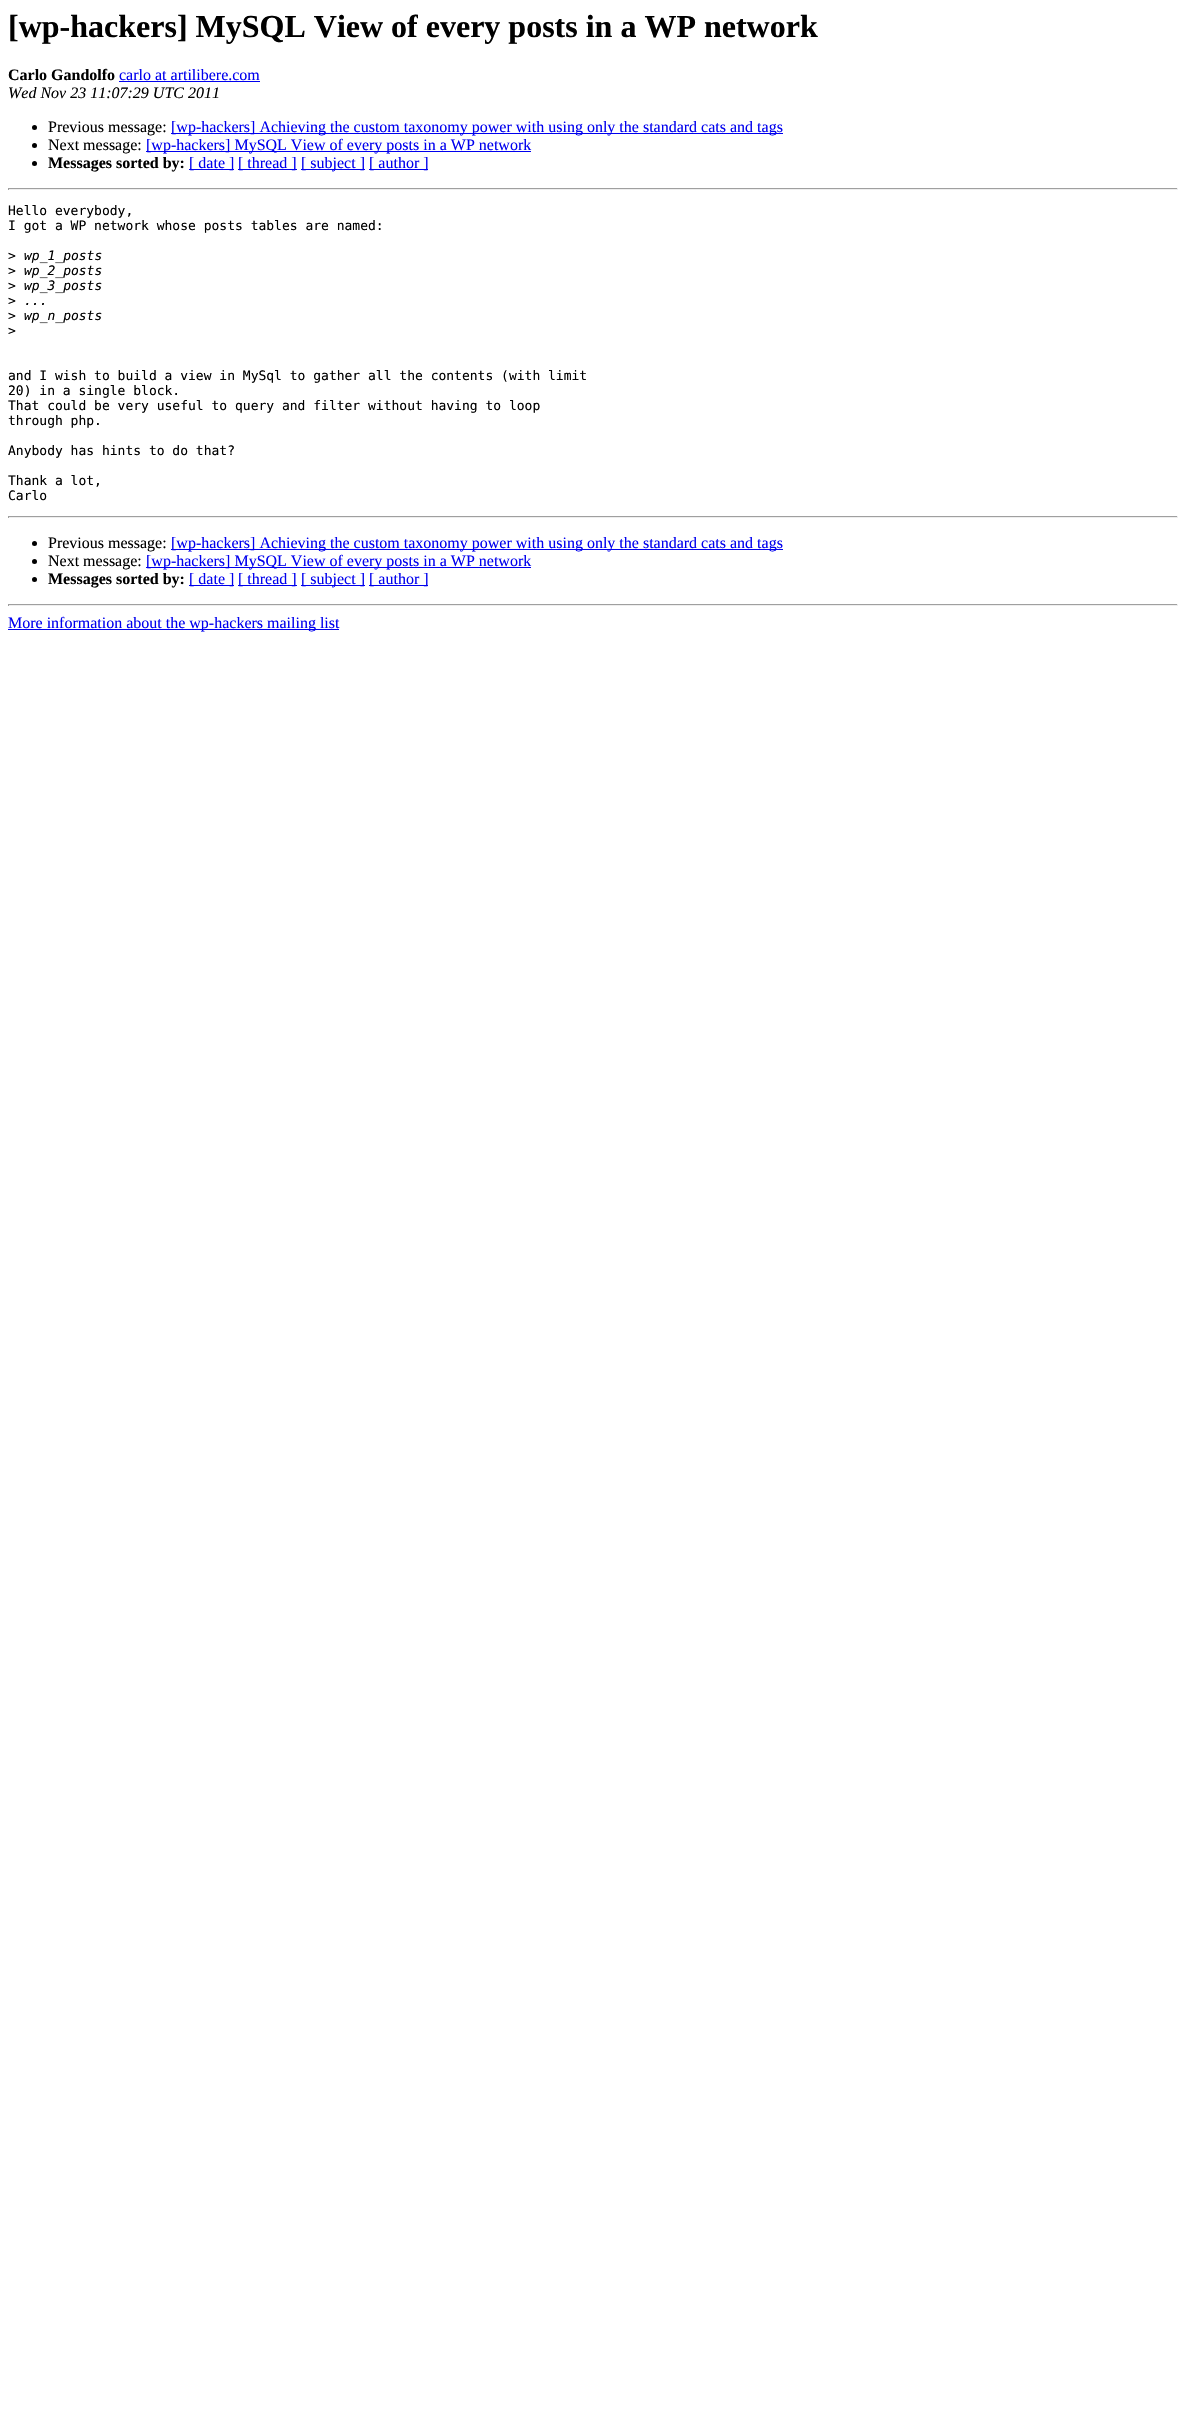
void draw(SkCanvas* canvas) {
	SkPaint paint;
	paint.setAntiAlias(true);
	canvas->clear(0xffffffff);
	SkFont f1(fontMgr->matchFamilyStyle("Liberation Serif", SkFontStyle::Bold()), 32);
	f1.setSubpixel(true);
	paint.setColor(0xff000000);
	canvas->drawString("[wp-hackers] MySQL View of every posts in a WP network", 8, 37, f1, paint);
	SkFont f2(fontMgr->matchFamilyStyle("Liberation Serif", SkFontStyle::Bold()), 16);
	f2.setSubpixel(true);
	canvas->drawString("Carlo Gandolfo", 8, 80, f2, paint);
	SkFont f3(fontMgr->matchFamilyStyle("Liberation Serif", SkFontStyle::Normal()), 16);
	f3.setSubpixel(true);
	paint.setColor(0xff0000ee);
	canvas->drawString("carlo at artilibere.com", 119, 80, f3, paint);
	canvas->drawRect(SkRect::MakeXYWH(119, 81, 141, 1), paint);
	SkFont f4(fontMgr->matchFamilyStyle("Liberation Serif", SkFontStyle::Italic()), 16);
	f4.setSubpixel(true);
	paint.setColor(0xff000000);
	canvas->drawString("Wed Nov 23 11:07:29 UTC 2011", 8, 98, f4, paint);
	canvas->drawCircle(34.5, 127.5, 2.5, paint);
	canvas->drawString("Previous message:", 48, 132, f3, paint);
	paint.setColor(0xff0000ee);
	canvas->drawRect(SkRect::MakeXYWH(171, 133, 612, 1), paint);
	canvas->drawString("[wp-hackers] Achieving the custom taxonomy power with using only the standard cats and tags", 171, 132, f3, paint);
	paint.setColor(0xff000000);
	canvas->drawCircle(34.5, 145.5, 2.5, paint);
	canvas->drawString("Next message:", 48, 150, f3, paint);
	paint.setColor(0xff0000ee);
	canvas->drawRect(SkRect::MakeXYWH(146, 151, 385, 1), paint);
	canvas->drawString("[wp-hackers] MySQL View of every posts in a WP network", 146, 150, f3, paint);
	paint.setColor(0xff000000);
	canvas->drawCircle(34.5, 163.5, 2.5, paint);
	canvas->drawString("Messages sorted by:", 48, 168, f2, paint);
	paint.setColor(0xff0000ee);
	canvas->drawRect(SkRect::MakeXYWH(189, 169, 45, 1), paint);
	canvas->drawString("[ date ]", 189, 168, f3, paint);
	canvas->drawRect(SkRect::MakeXYWH(238, 169, 59, 1), paint);
	canvas->drawString("[ thread ]", 238, 168, f3, paint);
	canvas->drawRect(SkRect::MakeXYWH(301, 169, 64, 1), paint);
	canvas->drawString("[ subject ]", 301, 168, f3, paint);
	canvas->drawRect(SkRect::MakeXYWH(369, 169, 59, 1), paint);
	canvas->drawString("[ author ]", 369, 168, f3, paint);
	paint.setColor(0xff9f9f9f);
	canvas->drawRect(SkRect::MakeXYWH(8, 188, 1170, 1), paint);
	paint.setColor(0xffeeeeee);
	canvas->drawRect(SkRect::MakeXYWH(1177, 188, 1, 2), paint);
	canvas->drawRect(SkRect::MakeXYWH(8, 189, 1170, 1), paint);
	paint.setColor(0xff9f9f9f);
	canvas->drawRect(SkRect::MakeXYWH(8, 188, 1, 2), paint);
	SkFont f5(fontMgr->matchFamilyStyle("DejaVu Sans Mono", SkFontStyle::Normal()), 13);
	f5.setSubpixel(true);
	paint.setColor(0xff000000);
	canvas->drawString("Hello everybody,", 8, 215, f5, paint);
	canvas->drawString("I got a WP network whose posts tables are named:", 8, 230, f5, paint);
	canvas->drawString(">", 8, 260, f5, paint);
	SkFont f6(fontMgr->matchFamilyStyle("DejaVu Sans Mono", SkFontStyle::Italic()), 13);
	f6.setSubpixel(true);
	canvas->drawString("wp_1_posts", 24, 260, f6, paint);
	canvas->drawString(">", 8, 275, f5, paint);
	canvas->drawString("wp_2_posts", 24, 275, f6, paint);
	canvas->drawString(">", 8, 290, f5, paint);
	canvas->drawString("wp_3_posts", 24, 290, f6, paint);
	canvas->drawString(">", 8, 305, f5, paint);
	canvas->drawString("...", 24, 305, f6, paint);
	canvas->drawString(">", 8, 320, f5, paint);
	canvas->drawString("wp_n_posts", 24, 320, f6, paint);
	canvas->drawString(">", 8, 335, f5, paint);
	canvas->drawString("and I wish to build a view in MySql to gather all the contents (with limit", 8, 380, f5, paint);
	canvas->drawString("20) in a single block.", 8, 395, f5, paint);
	canvas->drawString("That could be very useful to query and filter without having to loop", 8, 410, f5, paint);
	canvas->drawString("through php.", 8, 425, f5, paint);
	canvas->drawString("Anybody has hints to do that?", 8, 455, f5, paint);
	canvas->drawString("Thank a lot,", 8, 485, f5, paint);
	canvas->drawString("Carlo", 8, 500, f5, paint);
	paint.setColor(0xff9f9f9f);
	canvas->drawRect(SkRect::MakeXYWH(8, 516, 1170, 1), paint);
	paint.setColor(0xffeeeeee);
	canvas->drawRect(SkRect::MakeXYWH(1177, 516, 1, 2), paint);
	canvas->drawRect(SkRect::MakeXYWH(8, 517, 1170, 1), paint);
	paint.setColor(0xff9f9f9f);
	canvas->drawRect(SkRect::MakeXYWH(8, 516, 1, 2), paint);
	paint.setColor(0xff000000);
	canvas->drawCircle(34.5, 543.5, 2.5, paint);
	canvas->drawString("Previous message:", 48, 548, f3, paint);
	paint.setColor(0xff0000ee);
	canvas->drawRect(SkRect::MakeXYWH(171, 549, 612, 1), paint);
	canvas->drawString("[wp-hackers] Achieving the custom taxonomy power with using only the standard cats and tags", 171, 548, f3, paint);
	paint.setColor(0xff000000);
	canvas->drawCircle(34.5, 561.5, 2.5, paint);
	canvas->drawString("Next message:", 48, 566, f3, paint);
	paint.setColor(0xff0000ee);
	canvas->drawRect(SkRect::MakeXYWH(146, 567, 385, 1), paint);
	canvas->drawString("[wp-hackers] MySQL View of every posts in a WP network", 146, 566, f3, paint);
	paint.setColor(0xff000000);
	canvas->drawCircle(34.5, 579.5, 2.5, paint);
	canvas->drawString("Messages sorted by:", 48, 584, f2, paint);
	paint.setColor(0xff0000ee);
	canvas->drawRect(SkRect::MakeXYWH(189, 585, 45, 1), paint);
	canvas->drawString("[ date ]", 189, 584, f3, paint);
	canvas->drawRect(SkRect::MakeXYWH(238, 585, 59, 1), paint);
	canvas->drawString("[ thread ]", 238, 584, f3, paint);
	canvas->drawRect(SkRect::MakeXYWH(301, 585, 64, 1), paint);
	canvas->drawString("[ subject ]", 301, 584, f3, paint);
	canvas->drawRect(SkRect::MakeXYWH(369, 585, 59, 1), paint);
	canvas->drawString("[ author ]", 369, 584, f3, paint);
	paint.setColor(0xff9f9f9f);
	canvas->drawRect(SkRect::MakeXYWH(8, 604, 1170, 1), paint);
	paint.setColor(0xffeeeeee);
	canvas->drawRect(SkRect::MakeXYWH(1177, 604, 1, 2), paint);
	canvas->drawRect(SkRect::MakeXYWH(8, 605, 1170, 1), paint);
	paint.setColor(0xff9f9f9f);
	canvas->drawRect(SkRect::MakeXYWH(8, 604, 1, 2), paint);
	paint.setColor(0xff0000ee);
	canvas->drawRect(SkRect::MakeXYWH(8, 629, 331, 1), paint);
	canvas->drawString("More information about the wp-hackers mailing list", 8, 628, f3, paint);
}
